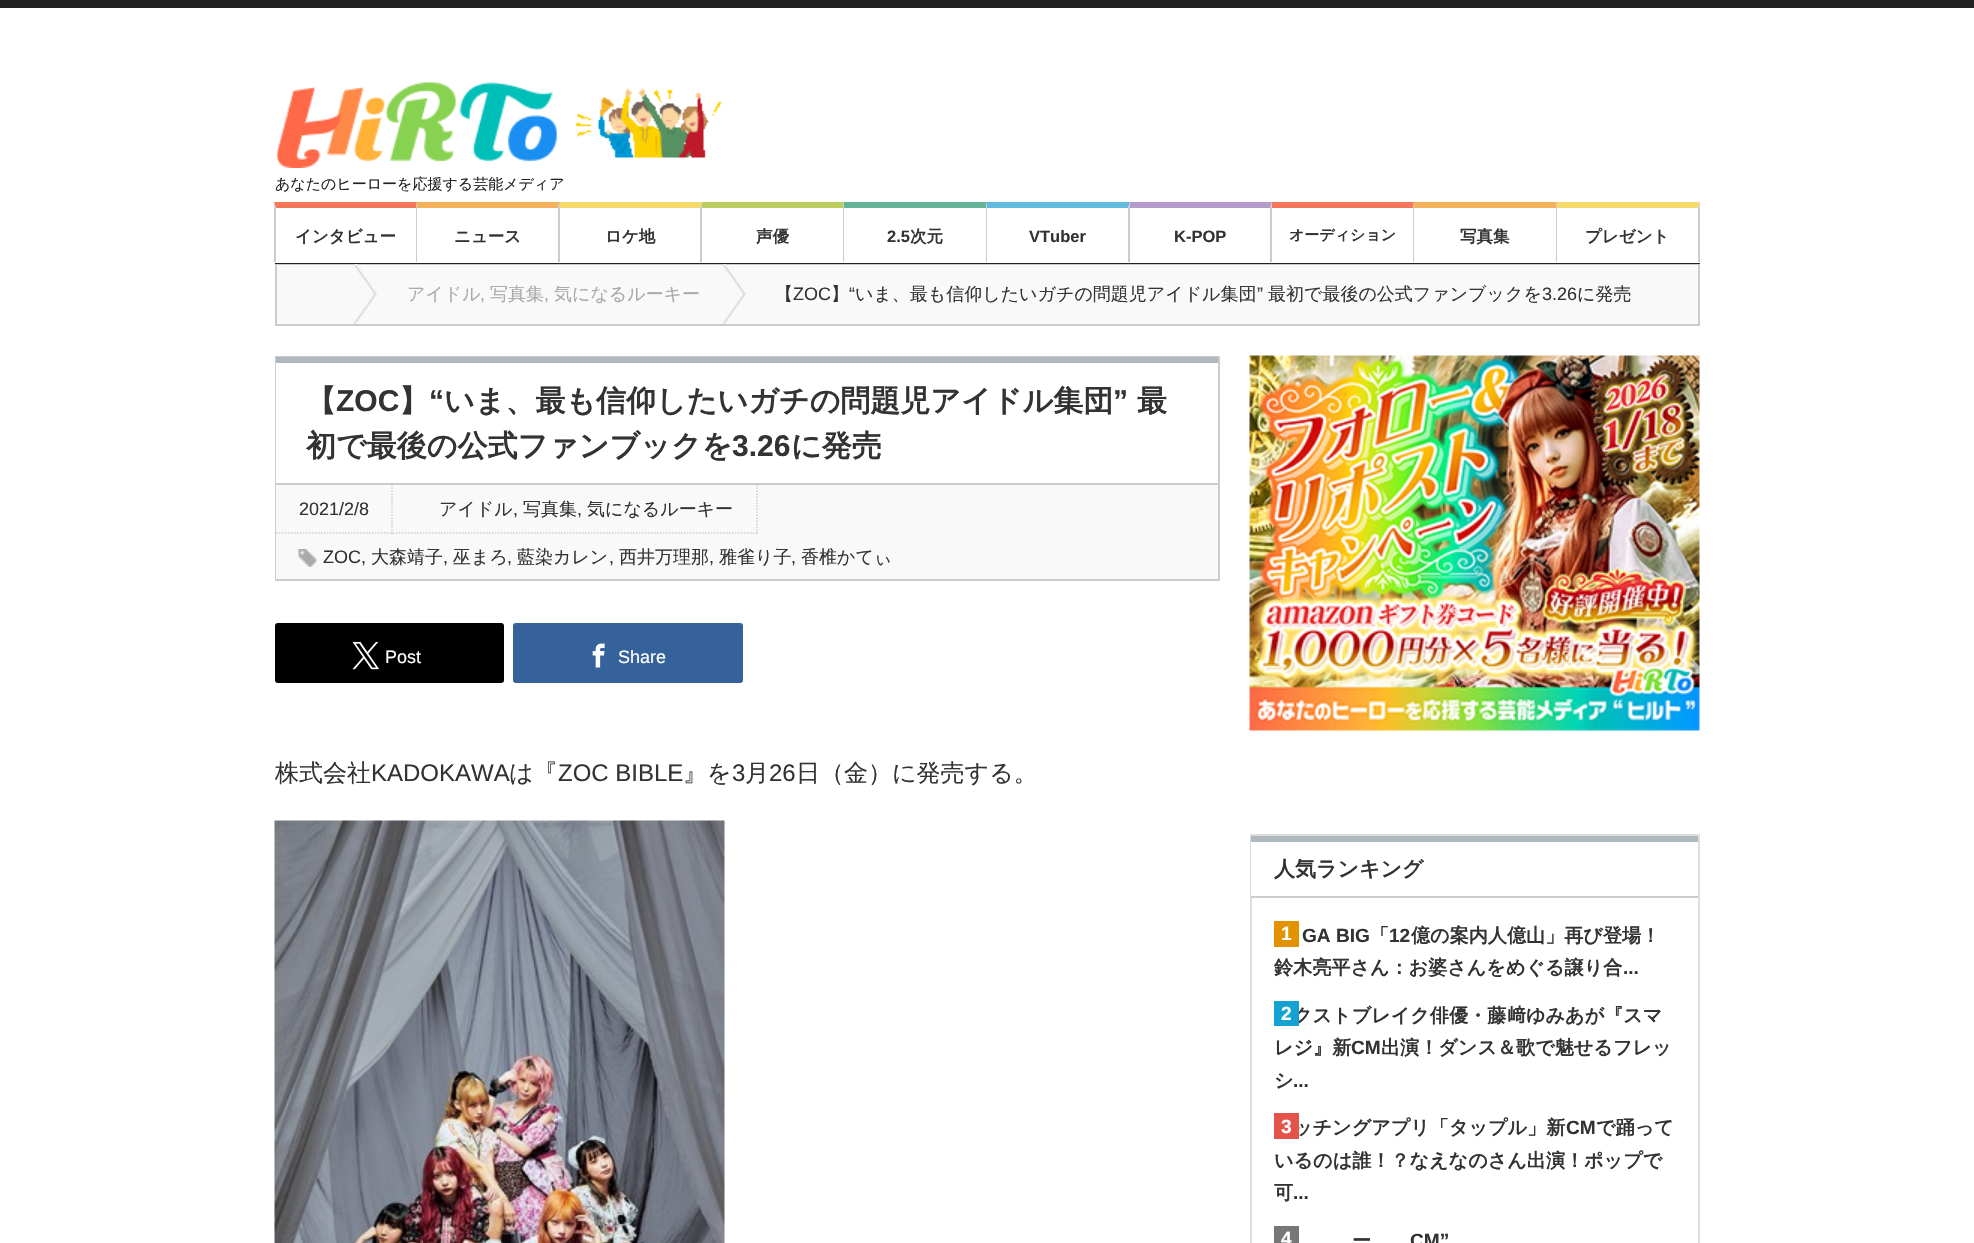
void draw(SkCanvas* canvas) {
	SkPaint paint;
	paint.setAntiAlias(true);
	auto svgPath = [&](const char* data, bool evenOdd = false) {
		SkPath result = *SkParsePath::FromSVGString(data);
		if (evenOdd) result.setFillType(SkPathFillType::kEvenOdd);
		return result;
	};
	canvas->clear(0xffffffff);
	paint.setColor(0xff222222);
	canvas->drawRect(SkRect::MakeXYWH(0, 0, 1974, 8), paint);
	canvas->drawImageRect(SkImages::DeferredFromEncodedData(SkData::MakeFromFileName("img1.png")), SkRect::MakeXYWH(575, 88, 147, 70), SkSamplingOptions());
	canvas->drawImageRect(SkImages::DeferredFromEncodedData(SkData::MakeFromFileName("img2.png")), SkRect::MakeXYWH(277, 82, 280, 86), SkSamplingOptions());
	SkFont f1(fontMgr->matchFamilyStyle("WenQuanYi Zen Hei", SkFontStyle(500, SkFontStyle::kNormal_Width, SkFontStyle::kUpright_Slant)), 15);
	f1.setSubpixel(true);
	canvas->drawString("あなたのヒーローを応援する芸能メディア", 275, 189, f1, paint);
	paint.setColor(0xfff9f9f9);
	canvas->drawRect(SkRect::MakeXYWH(276, 264, 1423, 61), paint);
	paint.setStroke(true);
	paint.setStrokeWidth(2);
	paint.setColor(0xffcccccc);
	canvas->drawRect(SkRect::MakeXYWH(276, 264, 1423, 61), paint);
	paint.setStroke(false);
	paint.setColor(0xff222222);
	canvas->drawRect(SkRect::MakeXYWH(275, 263, 1425, 1), paint);
	paint.setColor(0xfff6775a);
	canvas->drawPath(svgPath("M274 202H417L416 208H276Z"), paint);
	paint.setColor(0xffcccccc);
	canvas->drawPath(svgPath("M417 202V262H416V208Z"), paint);
	canvas->drawPath(svgPath("M274 262V202L276 208V262Z"), paint);
	SkFont f2(fontMgr->matchFamilyStyle("WenQuanYi Zen Hei", SkFontStyle::Bold()), 16.5);
	f2.setSubpixel(true);
	paint.setColor(0xff333333);
	canvas->drawString("インタビュー", 295, 242, f2, paint);
	paint.setColor(0xfff5b25d);
	canvas->drawPath(svgPath("M417 202H560L558 208H417Z"), paint);
	paint.setColor(0xffcccccc);
	canvas->drawPath(svgPath("M560 202V262H558V208Z"), paint);
	paint.setColor(0xff333333);
	canvas->drawString("ニュース", 454, 242, f2, paint);
	paint.setColor(0xfff5d96b);
	canvas->drawPath(svgPath("M560 202H702L700 208H560Z"), paint);
	paint.setColor(0xffcccccc);
	canvas->drawPath(svgPath("M702 202V262H700V208Z"), paint);
	paint.setColor(0xff333333);
	canvas->drawString("ロケ地", 605, 242, f2, paint);
	paint.setColor(0xffbdcd60);
	canvas->drawPath(svgPath("M702 202H844L843 208H702Z"), paint);
	paint.setColor(0xffcccccc);
	canvas->drawPath(svgPath("M844 202V262H843V208Z"), paint);
	paint.setColor(0xff333333);
	canvas->drawString("声優", 756, 242, f2, paint);
	paint.setColor(0xff64b498);
	canvas->drawPath(svgPath("M844 202H987L986 208H844Z"), paint);
	paint.setColor(0xffcccccc);
	canvas->drawPath(svgPath("M987 202V262H986V208Z"), paint);
	SkFont f3(fontMgr->matchFamilyStyle("Liberation Sans", SkFontStyle::Bold()), 16.5);
	f3.setSubpixel(true);
	paint.setColor(0xff333333);
	canvas->drawString("2.5", 887, 242, f3, paint);
	canvas->drawString("次元", 910, 242, f2, paint);
	paint.setColor(0xff62bbde);
	canvas->drawPath(svgPath("M987 202H1130L1128 208H987Z"), paint);
	paint.setColor(0xffcccccc);
	canvas->drawPath(svgPath("M1130 202V262H1128V208Z"), paint);
	paint.setColor(0xff333333);
	canvas->drawString("VTuber", 1029, 242, f3, paint);
	paint.setColor(0xffb59bca);
	canvas->drawPath(svgPath("M1130 202H1272L1270 208H1130Z"), paint);
	paint.setColor(0xffcccccc);
	canvas->drawPath(svgPath("M1272 202V262H1270V208Z"), paint);
	paint.setColor(0xff333333);
	canvas->drawString("K-POP", 1174, 242, f3, paint);
	paint.setColor(0xfff6775a);
	canvas->drawPath(svgPath("M1272 202H1414L1413 208H1272Z"), paint);
	paint.setColor(0xffcccccc);
	canvas->drawPath(svgPath("M1414 202V262H1413V208Z"), paint);
	SkFont f4(fontMgr->matchFamilyStyle("WenQuanYi Zen Hei", SkFontStyle::Bold()), 15);
	f4.setSubpixel(true);
	paint.setColor(0xff333333);
	canvas->drawString("オーディション", 1289, 240, f4, paint);
	paint.setColor(0xfff5b25d);
	canvas->drawPath(svgPath("M1414 202H1557L1556 208H1414Z"), paint);
	paint.setColor(0xffcccccc);
	canvas->drawPath(svgPath("M1557 202V262H1556V208Z"), paint);
	paint.setColor(0xff333333);
	canvas->drawString("写真集", 1460, 242, f2, paint);
	paint.setColor(0xfff5d96b);
	canvas->drawPath(svgPath("M1557 202H1700L1698 208H1557Z"), paint);
	paint.setColor(0xffcccccc);
	canvas->drawPath(svgPath("M1700 202V262H1698V208Z"), paint);
	paint.setColor(0xff333333);
	canvas->drawString("プレゼント", 1585, 242, f2, paint);
	canvas->drawImageRect(SkImages::DeferredFromEncodedData(SkData::MakeFromFileName("img3.png")), SkRect::MakeXYWH(354, 264, 23, 60), SkSamplingOptions());
	canvas->drawImageRect(SkImages::DeferredFromEncodedData(SkData::MakeFromFileName("img3.png")), SkRect::MakeXYWH(723, 264, 23, 60), SkSamplingOptions());
	SkFont f5(fontMgr->matchFamilyStyle("WenQuanYi Zen Hei", SkFontStyle(500, SkFontStyle::kNormal_Width, SkFontStyle::kUpright_Slant)), 18);
	f5.setSubpixel(true);
	paint.setColor(0xffaaaaaa);
	canvas->drawString("アイドル", 407, 300, f5, paint);
	SkFont f6(fontMgr->matchFamilyStyle("Liberation Sans", SkFontStyle::Normal()), 18);
	f6.setSubpixel(true);
	canvas->drawString(",", 480, 300, f6, paint);
	canvas->drawString("写真集", 490, 300, f5, paint);
	canvas->drawString(",", 544, 300, f6, paint);
	canvas->drawString("気になるルーキー", 554, 300, f5, paint);
	paint.setColor(0xff333333);
	canvas->drawString("【", 775, 300, f5, paint);
	canvas->drawString("ZOC", 793, 300, f6, paint);
	canvas->drawString("】", 831, 300, f5, paint);
	canvas->drawString("“", 849, 300, f6, paint);
	canvas->drawString("いま、最も信仰したいガチの問題児アイドル集団", 855, 300, f5, paint);
	canvas->drawString("”", 1257, 300, f6, paint);
	canvas->drawString("最初で最後の公式ファンブックを", 1268, 300, f5, paint);
	canvas->drawString("3.26", 1542, 300, f6, paint);
	canvas->drawString("に発売", 1577, 300, f5, paint);
	paint.setStroke(true);
	paint.setColor(0xffcccccc);
	canvas->drawRect(SkRect::MakeXYWH(276, 357, 943, 223), paint);
	paint.setStroke(false);
	paint.setColor(0xffffffff);
	canvas->drawRect(SkRect::MakeXYWH(276, 363, 1, 120), paint);
	paint.setColor(0xffadb8bf);
	canvas->drawRect(SkRect::MakeXYWH(276, 357, 942, 6), paint);
	paint.setColor(0xffcccccc);
	canvas->drawRect(SkRect::MakeXYWH(276, 483, 942, 2), paint);
	SkFont f7(fontMgr->matchFamilyStyle("WenQuanYi Zen Hei", SkFontStyle::Bold()), 30);
	f7.setSubpixel(true);
	paint.setColor(0xff333333);
	canvas->drawString("【", 306, 411, f7, paint);
	SkFont f8(fontMgr->matchFamilyStyle("Liberation Sans", SkFontStyle::Bold()), 30);
	f8.setSubpixel(true);
	canvas->drawString("ZOC", 336, 411, f8, paint);
	canvas->drawString("】", 399, 411, f7, paint);
	canvas->drawString("“", 429, 411, f8, paint);
	canvas->drawString("いま、最も信仰したいガチの問題児アイドル集団", 444, 411, f7, paint);
	canvas->drawString("”", 1113, 411, f8, paint);
	canvas->drawString("最", 1137, 411, f7, paint);
	canvas->drawString("初で最後の公式ファンブックを", 306, 456, f7, paint);
	canvas->drawString("3.26", 732, 456, f8, paint);
	canvas->drawString("に発売", 791, 456, f7, paint);
	paint.setColor(0xfff9f9f9);
	canvas->drawRect(SkRect::MakeXYWH(276, 485, 942, 94), paint);
	paint.setStroke(true);
	paint.setStrokeWidth(1.5);
	paint.setColor(0xffcccccc);
	paint.setPathEffect(SkDashPathEffect::Make({{1.5f, 1.5f}}, 0));
	canvas->drawPath(svgPath("M392 484.5V534"), paint);
	paint.setPathEffect(nullptr);
	paint.setPathEffect(SkDashPathEffect::Make({{1.5f, 1.5f}}, 0));
	canvas->drawPath(svgPath("M276 533H393"), paint);
	paint.setPathEffect(nullptr);
	paint.setStroke(false);
	paint.setColor(0xff333333);
	canvas->drawString("2021/2/8", 299, 515, f6, paint);
	paint.setStroke(true);
	paint.setColor(0xffcccccc);
	paint.setPathEffect(SkDashPathEffect::Make({{1.5f, 1.5f}}, 0));
	canvas->drawPath(svgPath("M757 484.5V534"), paint);
	paint.setPathEffect(nullptr);
	paint.setPathEffect(SkDashPathEffect::Make({{1.5f, 1.5f}}, 0));
	canvas->drawPath(svgPath("M393 533H757.5"), paint);
	paint.setPathEffect(nullptr);
	paint.setStroke(false);
	paint.setColor(0xff333333);
	canvas->drawString("アイドル", 439, 515, f5, paint);
	canvas->drawString(",", 513, 515, f6, paint);
	canvas->drawString("写真集", 523, 515, f5, paint);
	canvas->drawString(",", 577, 515, f6, paint);
	canvas->drawString("気になるルーキー", 587, 515, f5, paint);
	canvas->drawImageRect(SkImages::DeferredFromEncodedData(SkData::MakeFromFileName("img4.png")), SkRect::MakeXYWH(298, 549, 19, 18), SkSamplingOptions());
	canvas->drawString("ZOC,", 323, 563, f6, paint);
	canvas->drawString("大森靖子", 371, 563, f5, paint);
	canvas->drawString(",", 443, 563, f6, paint);
	canvas->drawString("巫まろ", 453, 563, f5, paint);
	canvas->drawString(",", 507, 563, f6, paint);
	canvas->drawString("藍染カレン", 517, 563, f5, paint);
	canvas->drawString(",", 609, 563, f6, paint);
	canvas->drawString("西井万理那", 619, 563, f5, paint);
	canvas->drawString(",", 709, 563, f6, paint);
	canvas->drawString("雅雀り子", 719, 563, f5, paint);
	canvas->drawString(",", 791, 563, f6, paint);
	canvas->drawString("香椎かてぃ", 801, 563, f5, paint);
	paint.setColor(0xff000000);
	canvas->drawRoundRect(SkRect::MakeXYWH(275, 623, 229, 60), 3, 3, paint);
	canvas->drawImageRect(SkImages::DeferredFromEncodedData(SkData::MakeFromFileName("img5.png")), SkRect::MakeXYWH(352, 641, 28, 29), SkSamplingOptions());
	paint.setColor(0xffffffff);
	canvas->drawString("Post", 385, 663, f6, paint);
	paint.setColor(0xff35629a);
	canvas->drawRoundRect(SkRect::MakeXYWH(513, 623, 230, 60), 3, 3, paint);
	canvas->drawImageRect(SkImages::DeferredFromEncodedData(SkData::MakeFromFileName("img6.png")), SkRect::MakeXYWH(592, 643, 13, 25), SkSamplingOptions());
	paint.setColor(0xffffffff);
	canvas->drawString("Share", 618, 663, f6, paint);
	SkFont f9(fontMgr->matchFamilyStyle("WenQuanYi Zen Hei", SkFontStyle(500, SkFontStyle::kNormal_Width, SkFontStyle::kUpright_Slant)), 24);
	f9.setSubpixel(true);
	paint.setColor(0xff333333);
	canvas->drawString("株式会社", 275, 781, f9, paint);
	SkFont f10(fontMgr->matchFamilyStyle("Liberation Sans", SkFontStyle::Normal()), 24);
	f10.setSubpixel(true);
	canvas->drawString("KADOKAWA", 371, 781, f10, paint);
	canvas->drawString("は『", 509, 781, f9, paint);
	canvas->drawString("ZOC BIBLE", 558, 781, f10, paint);
	canvas->drawString("』を", 683, 781, f9, paint);
	canvas->drawString("3", 732, 781, f10, paint);
	canvas->drawString("月", 745, 781, f9, paint);
	canvas->drawString("26", 769, 781, f10, paint);
	canvas->drawString("日（金）に発売する。", 796, 781, f9, paint);
	canvas->drawImageRect(SkImages::DeferredFromEncodedData(SkData::MakeFromFileName("img7.png")), SkRect::MakeXYWH(274, 820, 452, 423), SkSamplingOptions());
	canvas->drawImageRect(SkImages::DeferredFromEncodedData(SkData::MakeFromFileName("img8.png")), SkRect::MakeXYWH(1249, 355, 451, 376), SkSamplingOptions());
	paint.setStroke(true);
	paint.setStrokeWidth(2);
	paint.setColor(0xffdddddd);
	canvas->drawRect(SkRect::MakeXYWH(1251, 835, 448, 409), paint);
	paint.setStroke(false);
	paint.setColor(0xffffffff);
	canvas->drawRect(SkRect::MakeXYWH(1251, 842, 1, 54), paint);
	paint.setColor(0xffadb8bf);
	canvas->drawRect(SkRect::MakeXYWH(1251, 836, 447, 6), paint);
	paint.setColor(0xffcccccc);
	canvas->drawRect(SkRect::MakeXYWH(1251, 896, 447, 2), paint);
	SkFont f11(fontMgr->matchFamilyStyle("WenQuanYi Zen Hei", SkFontStyle::Bold()), 21);
	f11.setSubpixel(true);
	paint.setColor(0xff333333);
	canvas->drawString("人気ランキング", 1274, 876, f11, paint);
	SkFont f12(fontMgr->matchFamilyStyle("Liberation Sans", SkFontStyle::Bold()), 19.1);
	f12.setSubpixel(true);
	canvas->drawString("GA BIG", 1302, 942, f12, paint);
	SkFont f13(fontMgr->matchFamilyStyle("WenQuanYi Zen Hei", SkFontStyle::Bold()), 19.1);
	f13.setSubpixel(true);
	canvas->drawString("「", 1370, 942, f13, paint);
	canvas->drawString("12", 1389, 942, f12, paint);
	canvas->drawString("億の案内人億山」再び登場！", 1411, 942, f13, paint);
	canvas->drawString("鈴木亮平さん：お婆さんをめぐる譲り合", 1274, 974, f13, paint);
	canvas->drawString("...", 1623, 974, f12, paint);
	paint.setColor(0xffe49300);
	canvas->drawRect(SkRect::MakeXYWH(1274, 921, 25, 26), paint);
	paint.setColor(0xffffffff);
	canvas->drawString("1", 1281, 940, f12, paint);
	paint.setColor(0xff333333);
	canvas->drawString("クストブレイク俳優・藤", 1293, 1022, f13, paint);
	SkFont f14(fontMgr->matchFamilyStyle("IPAGothic", SkFontStyle::Bold()), 19.1);
	f14.setSubpixel(true);
	canvas->drawString("﨑", 1507, 1022, f14, paint);
	canvas->drawString("ゆみあが『スマ", 1526, 1022, f13, paint);
	canvas->drawString("レジ』新", 1274, 1054, f13, paint);
	canvas->drawString("CM", 1351, 1054, f12, paint);
	canvas->drawString("出演！ダンス＆歌で魅せるフレッ", 1381, 1054, f13, paint);
	canvas->drawString("シ", 1274, 1087, f13, paint);
	canvas->drawString("...", 1293, 1087, f12, paint);
	paint.setColor(0xff14a2d2);
	canvas->drawRect(SkRect::MakeXYWH(1274, 1001, 25, 25), paint);
	paint.setColor(0xffffffff);
	canvas->drawString("2", 1281, 1020, f12, paint);
	paint.setColor(0xff333333);
	canvas->drawString("ッチングアプリ「タップル」新", 1293, 1134, f13, paint);
	canvas->drawString("CM", 1566, 1134, f12, paint);
	canvas->drawString("で踊って", 1596, 1134, f13, paint);
	canvas->drawString("いるのは誰！？なえなのさん出演！ポップで", 1274, 1167, f13, paint);
	canvas->drawString("可", 1274, 1199, f13, paint);
	canvas->drawString("...", 1293, 1199, f12, paint);
	paint.setColor(0xffe35349);
	canvas->drawRect(SkRect::MakeXYWH(1274, 1113, 25, 26), paint);
	paint.setColor(0xffffffff);
	canvas->drawString("3", 1281, 1133, f12, paint);
	paint.setColor(0xff777777);
	canvas->drawRect(SkRect::MakeXYWH(1274, 1226, 25, 17), paint);
	paint.setColor(0xffffffff);
	canvas->drawString("4", 1281, 1245, f12, paint);
	paint.setColor(0xff333333);
	canvas->drawString("ー", 1352, 1247, f13, paint);
	canvas->drawString("CM”", 1410, 1247, f12, paint);
}
